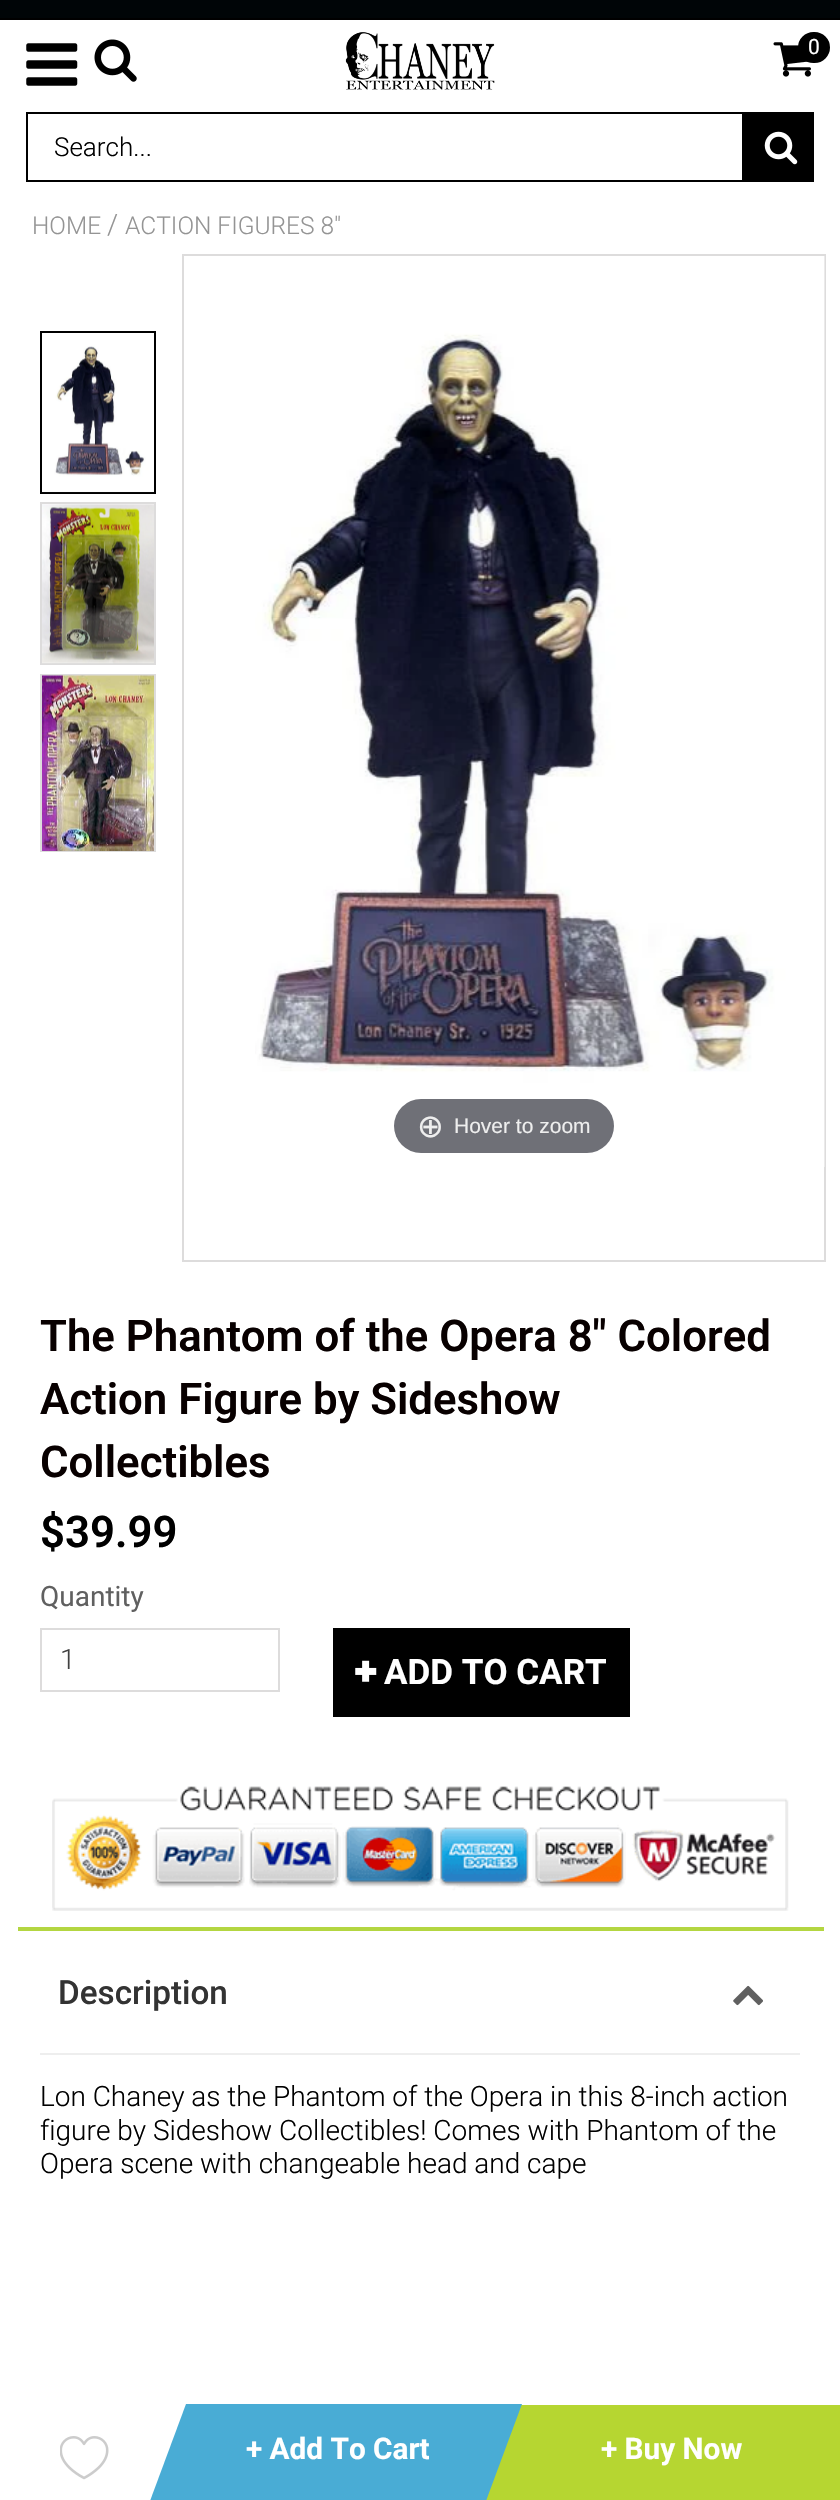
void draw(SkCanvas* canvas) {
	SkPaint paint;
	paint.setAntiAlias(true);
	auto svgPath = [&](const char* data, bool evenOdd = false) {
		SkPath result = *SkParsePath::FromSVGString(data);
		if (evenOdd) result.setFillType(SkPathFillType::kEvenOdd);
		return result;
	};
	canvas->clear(0xffffffff);
	paint.setColor(0xff000507);
	canvas->drawRect(SkRect::MakeXYWH(0, 0, 840, 18), paint);
	paint.setColor(0xff000000);
	canvas->drawRect(SkRect::MakeXYWH(0, 18, 840, 2), paint);
	canvas->drawImageRect(SkImages::DeferredFromEncodedData(SkData::MakeFromFileName("img1.png")), SkRect::MakeXYWH(26, 43, 52, 43), SkSamplingOptions());
	canvas->drawImageRect(SkImages::DeferredFromEncodedData(SkData::MakeFromFileName("img2.png")), SkRect::MakeXYWH(94, 39, 43, 43), SkSamplingOptions());
	canvas->drawImageRect(SkImages::DeferredFromEncodedData(SkData::MakeFromFileName("img3.png")), SkRect::MakeXYWH(345, 32, 150, 58), SkSamplingOptions());
	canvas->drawImageRect(SkImages::DeferredFromEncodedData(SkData::MakeFromFileName("img4.png")), SkRect::MakeXYWH(773, 42, 38, 35), SkSamplingOptions());
	canvas->drawRoundRect(SkRect::MakeXYWH(799, 33, 30, 29), 14.5, 14.5, paint);
	paint.setStroke(true);
	paint.setStrokeWidth(2);
	canvas->drawRoundRect(SkRect::MakeXYWH(799, 33, 30, 29), 14.5, 14.5, paint);
	SkFont f1(fontMgr->matchFamilyStyle("Roboto", SkFontStyle::Normal()), 21);
	f1.setSubpixel(true);
	paint.setStroke(false);
	paint.setColor(0xffffffff);
	canvas->drawString("0", 808, 54, f1, paint);
	paint.setStroke(true);
	paint.setColor(0xff000000);
	canvas->drawRect(SkRect::MakeXYWH(27, 113, 716, 68), paint);
	SkFont f2(fontMgr->matchFamilyStyle("Roboto", SkFontStyle(300, SkFontStyle::kNormal_Width, SkFontStyle::kUpright_Slant)), 26);
	f2.setSubpixel(true);
	paint.setStroke(false);
	canvas->drawString("Search...", 54, 156, f2, paint);
	canvas->drawRect(SkRect::MakeXYWH(744, 112, 70, 70), paint);
	canvas->drawImageRect(SkImages::DeferredFromEncodedData(SkData::MakeFromFileName("img5.png")), SkRect::MakeXYWH(764, 131, 34, 34), SkSamplingOptions());
	SkFont f3(fontMgr->matchFamilyStyle("Roboto", SkFontStyle(300, SkFontStyle::kNormal_Width, SkFontStyle::kUpright_Slant)), 24.5);
	f3.setSubpixel(true);
	paint.setColor(0xff949494);
	canvas->drawString("HOME", 32, 234, f3, paint);
	SkFont f4(fontMgr->matchFamilyStyle("Roboto", SkFontStyle(300, SkFontStyle::kNormal_Width, SkFontStyle::kUpright_Slant)), 28);
	f4.setSubpixel(true);
	canvas->drawString("/", 107, 234, f4, paint);
	canvas->drawString("ACTION FIGURES 8\"", 125, 234, f3, paint);
	paint.setColor(0xfffafafa);
	canvas->drawRect(SkRect::MakeXYWH(42, 491, 112, 1), paint);
	paint.setStroke(true);
	paint.setColor(0xff000000);
	canvas->drawRect(SkRect::MakeXYWH(41, 332, 114, 161), paint);
	canvas->drawImageRect(SkImages::DeferredFromEncodedData(SkData::MakeFromFileName("img6.png")), SkRect::MakeXYWH(42, 333, 112, 160), SkSamplingOptions());
	paint.setStroke(false);
	paint.setColor(0xfffafafa);
	canvas->drawRect(SkRect::MakeXYWH(41, 503, 114, 161), paint);
	paint.setStroke(true);
	paint.setColor(0xffdddcdc);
	canvas->drawRect(SkRect::MakeXYWH(41, 503, 114, 161), paint);
	canvas->drawImageRect(SkImages::DeferredFromEncodedData(SkData::MakeFromFileName("img7.png")), SkRect::MakeXYWH(42, 504, 112, 160), SkSamplingOptions());
	canvas->drawRect(SkRect::MakeXYWH(41, 675, 114, 176), paint);
	canvas->drawImageRect(SkImages::DeferredFromEncodedData(SkData::MakeFromFileName("img8.png")), SkRect::MakeXYWH(42, 675, 112, 176), SkSamplingOptions());
	canvas->drawRect(SkRect::MakeXYWH(183, 255, 642, 1006), paint);
	canvas->drawImageRect(SkImages::DeferredFromEncodedData(SkData::MakeFromFileName("img9.png")), SkRect::MakeXYWH(255, 256, 570, 911), SkSamplingOptions());
	paint.setStroke(false);
	paint.setColor(0xff6f7077);
	canvas->drawRoundRect(SkRect::MakeXYWH(394, 1099, 220, 54), 27, 27, paint);
	SkFont f5(fontMgr->matchFamilyStyle("DejaVu Sans", SkFontStyle::Normal()), 32);
	f5.setSubpixel(true);
	paint.setColor(0xffeeeeee);
	canvas->drawString("⊕", 417, 1137, f5, paint);
	SkFont f6(fontMgr->matchFamilyStyle("Liberation Sans", SkFontStyle::Normal()), 21);
	f6.setSubpixel(true);
	canvas->drawString("Hover to zoom", 454, 1133, f6, paint);
	SkFont f7(fontMgr->matchFamilyStyle("Roboto", SkFontStyle(600, SkFontStyle::kNormal_Width, SkFontStyle::kUpright_Slant)), 43.75);
	f7.setSubpixel(true);
	paint.setColor(0xff080000);
	canvas->drawString("The Phantom of the Opera 8\" Colored", 40, 1351, f7, paint);
	canvas->drawString("Action Figure by Sideshow", 40, 1414, f7, paint);
	canvas->drawString("Collectibles", 40, 1477, f7, paint);
	paint.setColor(0xff000000);
	canvas->drawString("$39.99", 40, 1547, f7, paint);
	SkFont f8(fontMgr->matchFamilyStyle("Roboto", SkFontStyle::Normal()), 28);
	f8.setSubpixel(true);
	paint.setColor(0xff606060);
	canvas->drawString("Quantity", 40, 1606, f8, paint);
	paint.setStroke(true);
	paint.setColor(0xffdddcdc);
	canvas->drawRect(SkRect::MakeXYWH(41, 1629, 238, 62), paint);
	paint.setStroke(false);
	paint.setColor(0xff414141);
	canvas->drawString("1", 60, 1669, f4, paint);
	paint.setColor(0xff000000);
	canvas->drawRect(SkRect::MakeXYWH(333, 1628, 297, 89), paint);
	canvas->drawImageRect(SkImages::DeferredFromEncodedData(SkData::MakeFromFileName("img10.png")), SkRect::MakeXYWH(355, 1660, 22, 22), SkSamplingOptions());
	SkFont f9(fontMgr->matchFamilyStyle("Roboto", SkFontStyle::Bold()), 35);
	f9.setSubpixel(true);
	paint.setColor(0xffffffff);
	canvas->drawString("ADD TO CART", 384, 1684, f9, paint);
	canvas->drawImageRect(SkImages::DeferredFromEncodedData(SkData::MakeFromFileName("img11.png")), SkRect::MakeXYWH(52, 1786, 737, 125), SkSamplingOptions());
	canvas->drawImageRect(SkImages::DeferredFromEncodedData(SkData::MakeFromFileName("img12.png")), SkRect::MakeXYWH(60, 2436, 49, 44), SkSamplingOptions());
	paint.setColor(0xffb6d631);
	canvas->drawRect(SkRect::MakeXYWH(513, 2405, 327, 95), paint);
	canvas->drawRect(SkRect::MakeXYWH(486, 2428, 27, 72), paint);
	paint.setColor(0xff49acd5);
	canvas->drawPath(svgPath("M186 2404H522L486 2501H150Z"), paint);
	SkFont f10(fontMgr->matchFamilyStyle("Roboto", SkFontStyle::Bold()), 29.75);
	f10.setSubpixel(true);
	paint.setColor(0xffffffff);
	canvas->drawString("+ Add To Cart", 246, 2459, f10, paint);
	canvas->drawString("+ Buy Now", 601, 2459, f10, paint);
	paint.setColor(0xffb4d641);
	canvas->drawRect(SkRect::MakeXYWH(18, 1927, 806, 4), paint);
	paint.setColor(0xffeeeeee);
	canvas->drawRect(SkRect::MakeXYWH(40, 2053, 760, 2), paint);
	SkFont f11(fontMgr->matchFamilyStyle("Roboto", SkFontStyle(500, SkFontStyle::kNormal_Width, SkFontStyle::kUpright_Slant)), 33.25);
	f11.setSubpixel(true);
	paint.setColor(0xff333333);
	canvas->drawString("Description", 58, 2004, f11, paint);
	canvas->drawImageRect(SkImages::DeferredFromEncodedData(SkData::MakeFromFileName("img13.png")), SkRect::MakeXYWH(733, 1985, 30, 21), SkSamplingOptions());
	paint.setColor(0xff000000);
	canvas->drawString("Lon Chaney as the Phantom of the Opera in this 8-inch action", 40, 2106, f4, paint);
	canvas->drawString("figure by Sideshow Collectibles! Comes with Phantom of the", 40, 2140, f4, paint);
	canvas->drawString("Opera scene with changeable head and cape", 40, 2173, f4, paint);
}
